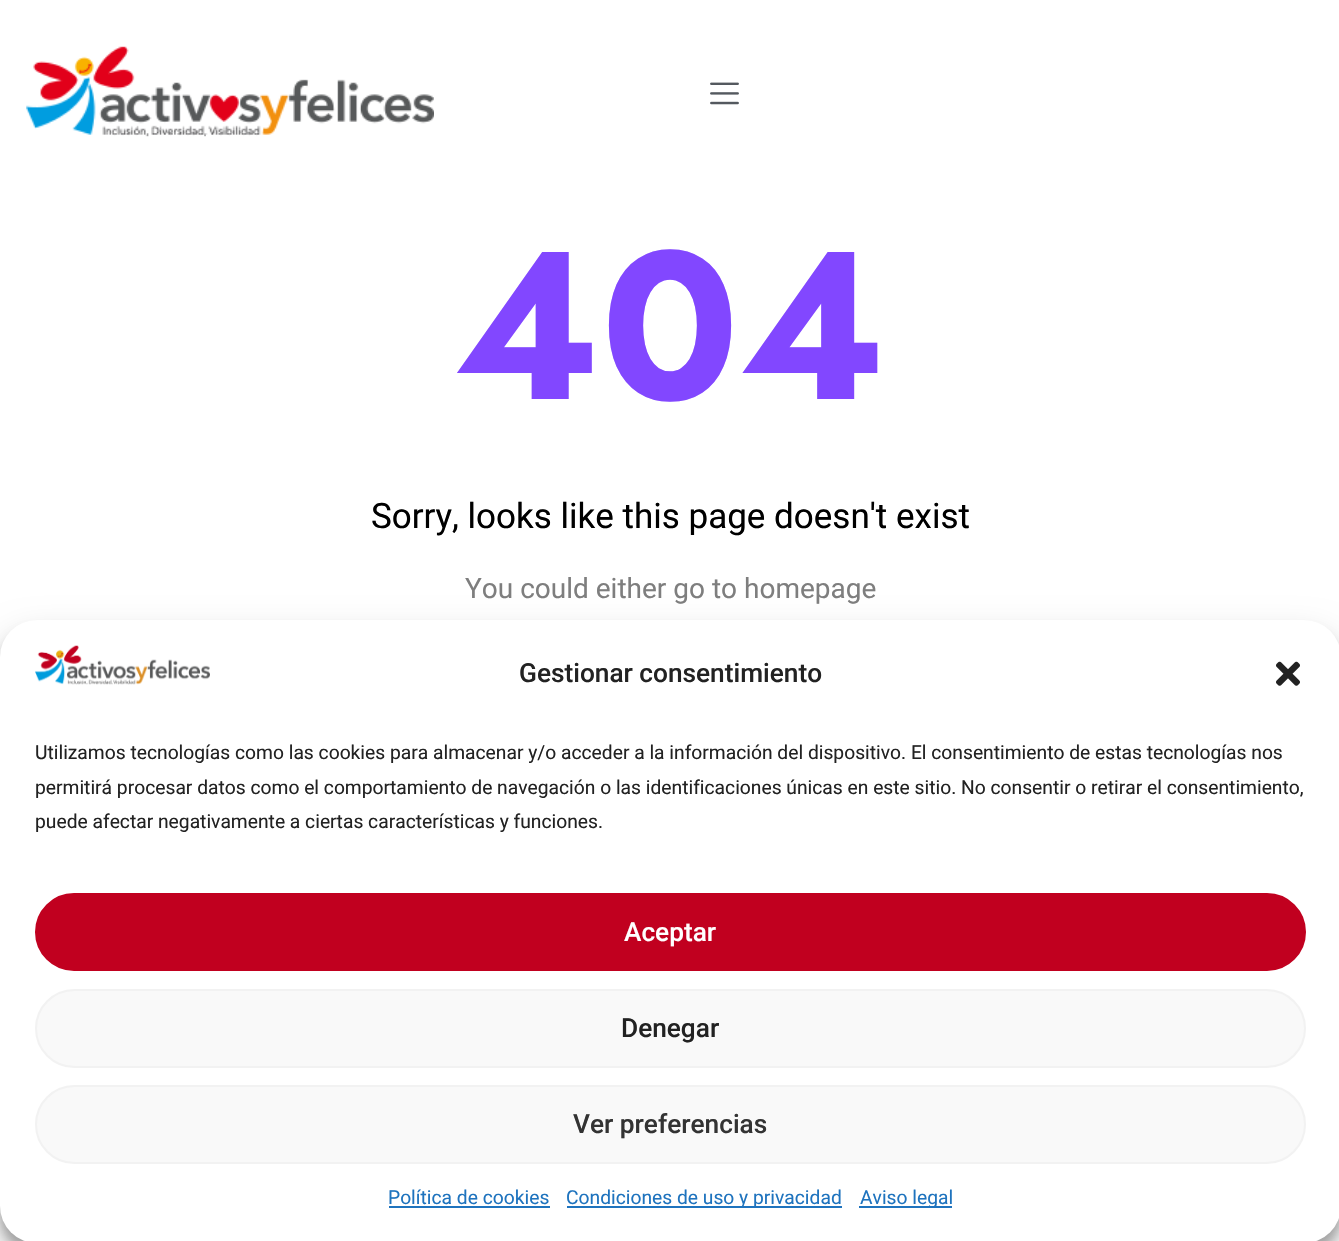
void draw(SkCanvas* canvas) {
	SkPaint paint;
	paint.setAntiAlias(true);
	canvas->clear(0xffffffff);
	canvas->drawImageRect(SkImages::DeferredFromEncodedData(SkData::MakeFromFileName("img1.png")), SkRect::MakeXYWH(26, 46, 408, 91), SkSamplingOptions());
	canvas->drawImageRect(SkImages::DeferredFromEncodedData(SkData::MakeFromFileName("img2.png")), SkRect::MakeXYWH(710, 82, 29, 23), SkSamplingOptions());
	SkFont f1(fontMgr->matchFamilyStyle("Jost", SkFontStyle::Bold()), 210);
	f1.setSubpixel(true);
	paint.setColor(0xff8247ff);
	canvas->drawString("404", 454, 399, f1, paint);
	SkFont f2(fontMgr->matchFamilyStyle("Roboto", SkFontStyle::Normal()), 35);
	f2.setSubpixel(true);
	paint.setColor(0xff000000);
	canvas->drawString("Sorry, looks like this page doesn't exist", 371, 528, f2, paint);
	SkFont f3(fontMgr->matchFamilyStyle("Roboto", SkFontStyle::Normal()), 28);
	f3.setSubpixel(true);
	paint.setColor(0xff7e7e7e);
	canvas->drawString("You could either go to homepage", 465, 598, f3, paint);
	paint.setColor(0xfff8f8f8);
	canvas->drawRect(SkRect::MakeXYWH(0, 1206, 1339, 35), paint);
	paint.setColor(0x3b000000);
	paint.setMaskFilter(SkMaskFilter::MakeBlur(kNormal_SkBlurStyle, 5));
	canvas->drawRoundRect(SkRect::MakeXYWH(0, 630, 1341, 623), 37, 37, paint);
	paint.setMaskFilter(nullptr);
	paint.setColor(0x30000000);
	paint.setMaskFilter(SkMaskFilter::MakeBlur(kNormal_SkBlurStyle, 17.5));
	canvas->drawRoundRect(SkRect::MakeXYWH(0, 637, 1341, 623), 37, 37, paint);
	paint.setMaskFilter(nullptr);
	paint.setColor(0xffffffff);
	canvas->drawRoundRect(SkRect::MakeXYWH(0, 620, 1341, 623), 37, 37, paint);
	canvas->drawImageRect(SkImages::DeferredFromEncodedData(SkData::MakeFromFileName("img3.png")), SkRect::MakeXYWH(35, 645, 175, 40), SkSamplingOptions());
	SkFont f4(fontMgr->matchFamilyStyle("Roboto", SkFontStyle(500, SkFontStyle::kNormal_Width, SkFontStyle::kUpright_Slant)), 26.25);
	f4.setSubpixel(true);
	paint.setColor(0xff222222);
	canvas->drawString("Gestionar consentimiento", 519, 682, f4, paint);
	canvas->drawImageRect(SkImages::DeferredFromEncodedData(SkData::MakeFromFileName("img4.png")), SkRect::MakeXYWH(1276, 661, 24, 25), SkSamplingOptions());
	SkFont f5(fontMgr->matchFamilyStyle("Roboto", SkFontStyle::Normal()), 19.25);
	f5.setSubpixel(true);
	canvas->drawString("Utilizamos tecnologías como las cookies para almacenar y/o acceder a la información del dispositivo. El consentimiento de estas tecnologías nos", 35, 759, f5, paint);
	canvas->drawString("permitirá procesar datos como el comportamiento de navegación o las identificaciones únicas en este sitio. No consentir o retirar el consentimiento,", 35, 794, f5, paint);
	canvas->drawString("puede afectar negativamente a ciertas características y funciones.", 35, 828, f5, paint);
	paint.setColor(0xffc1001f);
	canvas->drawRoundRect(SkRect::MakeXYWH(36, 894, 1269, 76), 38, 38, paint);
	paint.setStroke(true);
	paint.setStrokeWidth(2);
	canvas->drawRoundRect(SkRect::MakeXYWH(36, 894, 1269, 76), 38, 38, paint);
	paint.setStroke(false);
	paint.setColor(0xffffffff);
	canvas->drawString("Aceptar", 624, 941, f4, paint);
	paint.setColor(0xfff9f9f9);
	canvas->drawRoundRect(SkRect::MakeXYWH(36, 990, 1269, 77), 38.5, 38.5, paint);
	paint.setStroke(true);
	paint.setColor(0xfff2f2f2);
	canvas->drawRoundRect(SkRect::MakeXYWH(36, 990, 1269, 77), 38.5, 38.5, paint);
	paint.setStroke(false);
	paint.setColor(0xff222222);
	canvas->drawString("Denegar", 621, 1037, f4, paint);
	paint.setColor(0xfff9f9f9);
	canvas->drawRoundRect(SkRect::MakeXYWH(36, 1086, 1269, 77), 38.5, 38.5, paint);
	paint.setStroke(true);
	paint.setColor(0xfff2f2f2);
	canvas->drawRoundRect(SkRect::MakeXYWH(36, 1086, 1269, 77), 38.5, 38.5, paint);
	paint.setStroke(false);
	paint.setColor(0xff333333);
	canvas->drawString("Ver preferencias", 573, 1133, f4, paint);
	paint.setColor(0xff1e73be);
	canvas->drawString("Política de cookies", 388, 1204, f5, paint);
	canvas->drawRect(SkRect::MakeXYWH(389, 1206, 161, 2), paint);
	canvas->drawRect(SkRect::MakeXYWH(567, 1206, 275, 2), paint);
	canvas->drawString("Condiciones de uso y privacidad", 566, 1204, f5, paint);
	canvas->drawRect(SkRect::MakeXYWH(859, 1206, 93, 2), paint);
	canvas->drawString("Aviso legal", 860, 1204, f5, paint);
}
